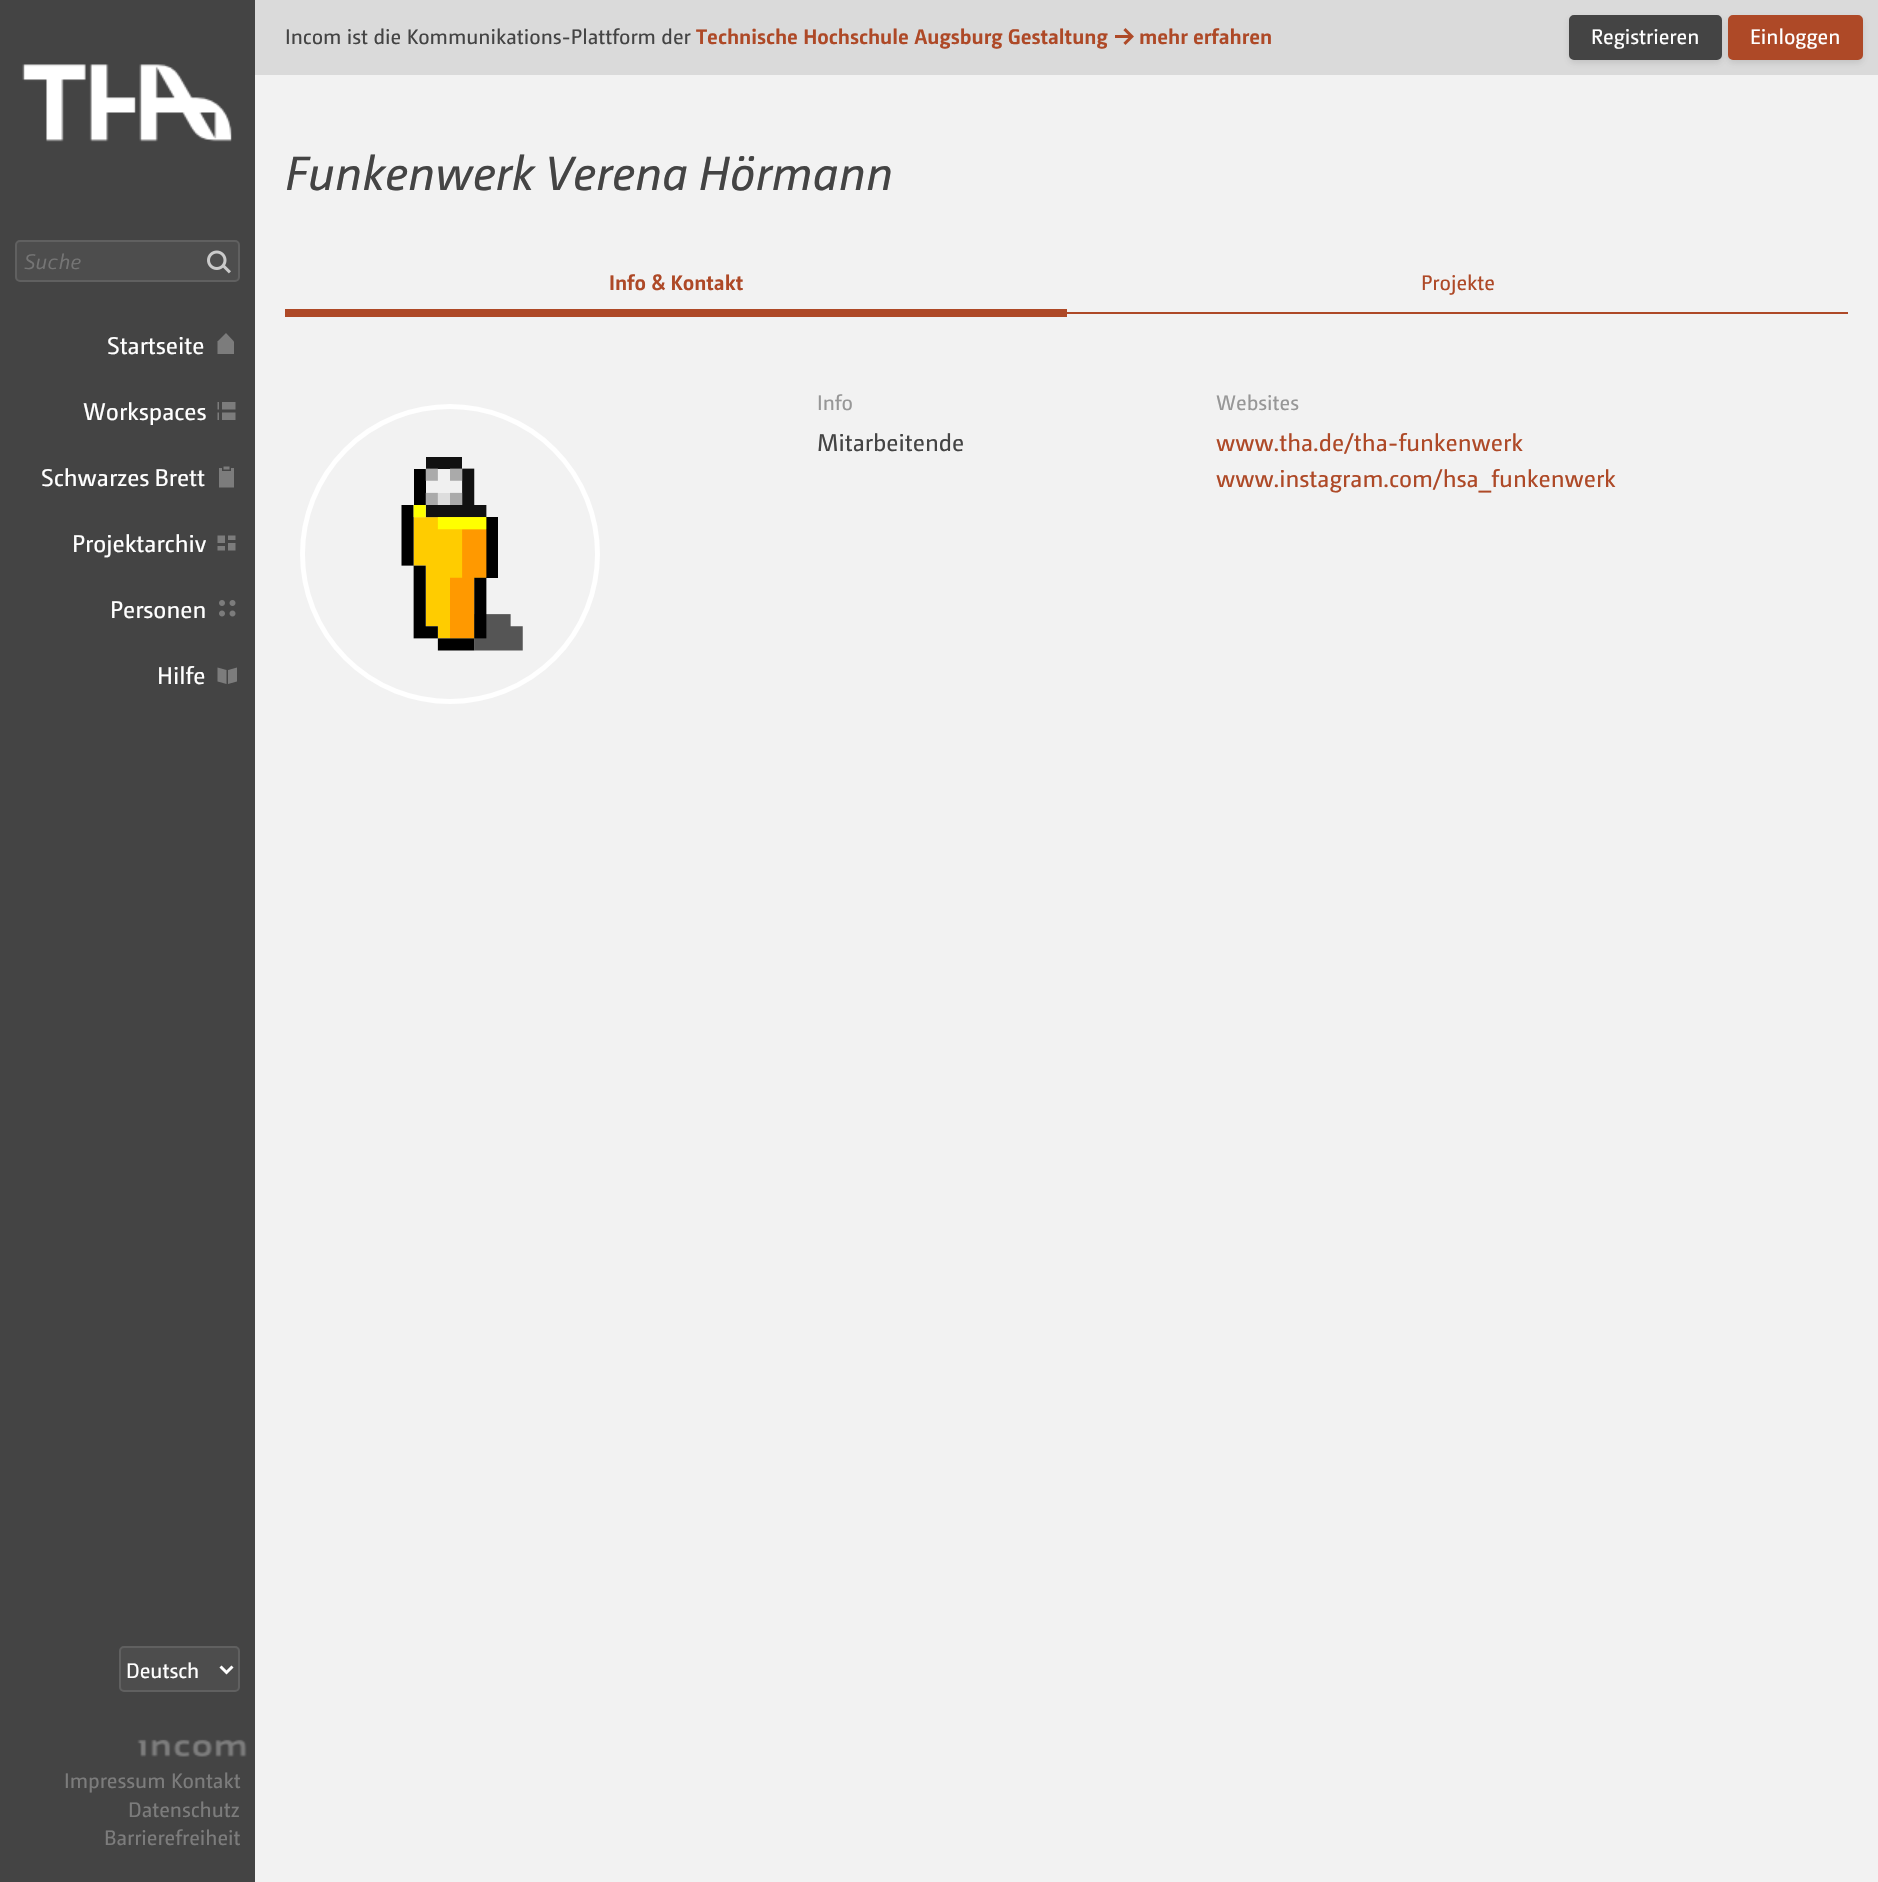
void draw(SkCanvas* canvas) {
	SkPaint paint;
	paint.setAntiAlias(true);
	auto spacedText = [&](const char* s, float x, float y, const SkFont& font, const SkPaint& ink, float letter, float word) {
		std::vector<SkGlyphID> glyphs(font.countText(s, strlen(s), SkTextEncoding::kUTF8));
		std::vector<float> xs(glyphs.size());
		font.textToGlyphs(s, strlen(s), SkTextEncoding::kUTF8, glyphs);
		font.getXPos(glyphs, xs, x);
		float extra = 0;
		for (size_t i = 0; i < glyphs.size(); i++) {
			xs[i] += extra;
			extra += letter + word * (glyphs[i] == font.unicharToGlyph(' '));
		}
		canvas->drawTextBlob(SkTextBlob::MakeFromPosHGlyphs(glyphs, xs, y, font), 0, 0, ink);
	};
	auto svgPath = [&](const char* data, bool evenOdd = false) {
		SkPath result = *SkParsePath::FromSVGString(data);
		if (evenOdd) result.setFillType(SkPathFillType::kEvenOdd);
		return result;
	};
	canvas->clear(0xfff2f2f2);
	paint.setColor(0xff444444);
	canvas->drawRect(SkRect::MakeXYWH(0, 0, 255, 1882), paint);
	canvas->drawImageRect(SkImages::DeferredFromEncodedData(SkData::MakeFromFileName("img1.png")), SkRect::MakeXYWH(22, 64, 210, 78), SkSamplingOptions());
	paint.setColor(0xff4d4d4d);
	canvas->drawRoundRect(SkRect::MakeXYWH(16, 241, 223, 40), 4, 4, paint);
	paint.setStroke(true);
	paint.setStrokeWidth(2);
	paint.setColor(0xff606060);
	canvas->drawRoundRect(SkRect::MakeXYWH(16, 241, 223, 40), 4, 4, paint);
	SkFont f1(fontMgr->matchFamilyStyle("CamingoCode", SkFontStyle::Italic()), 21);
	f1.setSubpixel(true);
	paint.setStroke(false);
	paint.setColor(0xff757575);
	canvas->drawString("Suche", 24, 269, f1, paint);
	canvas->drawImageRect(SkImages::DeferredFromEncodedData(SkData::MakeFromFileName("img2.png")), SkRect::MakeXYWH(207, 250, 24, 24), SkSamplingOptions());
	SkFont f2(fontMgr->matchFamilyStyle("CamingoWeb", SkFontStyle::Normal()), 24);
	f2.setSubpixel(true);
	paint.setColor(0xffffffff);
	canvas->drawString("Startseite", 107, 354, f2, paint);
	paint.setColor(0xff7c7c7c);
	canvas->drawPath(svgPath("M226 333L234 341.5V354H217.5V341.5Z", true), paint);
	paint.setColor(0xffffffff);
	canvas->drawString("Workspaces", 83, 420, f2, paint);
	canvas->drawImageRect(SkImages::DeferredFromEncodedData(SkData::MakeFromFileName("img3.png")), SkRect::MakeXYWH(217, 402, 19, 18), SkSamplingOptions());
	spacedText("Schwarzes Brett", 41, 486, f2, paint, 0, -1);
	canvas->drawImageRect(SkImages::DeferredFromEncodedData(SkData::MakeFromFileName("img4.png")), SkRect::MakeXYWH(219, 466, 15, 22), SkSamplingOptions());
	canvas->drawString("Projektarchiv", 72, 552, f2, paint);
	canvas->drawImageRect(SkImages::DeferredFromEncodedData(SkData::MakeFromFileName("img5.png")), SkRect::MakeXYWH(217, 535, 19, 16), SkSamplingOptions());
	canvas->drawString("Personen", 110, 618, f2, paint);
	canvas->drawImageRect(SkImages::DeferredFromEncodedData(SkData::MakeFromFileName("img6.png")), SkRect::MakeXYWH(219, 600, 17, 17), SkSamplingOptions());
	canvas->drawString("Hilfe", 157, 684, f2, paint);
	canvas->drawImageRect(SkImages::DeferredFromEncodedData(SkData::MakeFromFileName("img7.png")), SkRect::MakeXYWH(217, 667, 20, 17), SkSamplingOptions());
	paint.setColor(0xff4d4d4d);
	canvas->drawRoundRect(SkRect::MakeXYWH(120, 1647, 119, 44), 4, 4, paint);
	paint.setStroke(true);
	paint.setColor(0xff606060);
	canvas->drawRoundRect(SkRect::MakeXYWH(120, 1647, 119, 44), 4, 4, paint);
	paint.setStrokeWidth(3);
	paint.setColor(0xffffffff);
	canvas->drawPath(svgPath("M220.5 1666.5L226.5 1672.5L232.5 1666.5"), paint);
	SkFont f3(fontMgr->matchFamilyStyle("CamingoWeb", SkFontStyle::Normal()), 21);
	f3.setSubpixel(true);
	paint.setStroke(false);
	canvas->drawString("Deutsch", 126, 1678, f3, paint);
	canvas->drawImageRect(SkImages::DeferredFromEncodedData(SkData::MakeFromFileName("img8.png")), SkRect::MakeXYWH(137, 1739, 110, 18), SkSamplingOptions());
	paint.setColor(0xff7c7c7c);
	canvas->drawString("Impressum Kontakt", 64, 1788, f3, paint);
	canvas->drawString("Datenschutz", 128, 1817, f3, paint);
	canvas->drawString("Barrierefreiheit", 104, 1845, f3, paint);
	paint.setColor(0xffdadada);
	canvas->drawRect(SkRect::MakeXYWH(255, 0, 1623, 75), paint);
	paint.setColor(0xff444444);
	canvas->drawString("Incom ist die Kommunikations-Plattform der", 285, 44, f3, paint);
	SkFont f4(fontMgr->matchFamilyStyle("CamingoWeb", SkFontStyle::Bold()), 21);
	f4.setSubpixel(true);
	paint.setColor(0xffae4927);
	canvas->drawString("Technische Hochschule Augsburg Gestaltung", 696, 44, f4, paint);
	canvas->drawImageRect(SkImages::DeferredFromEncodedData(SkData::MakeFromFileName("img9.png")), SkRect::MakeXYWH(1115, 28, 19, 17), SkSamplingOptions());
	canvas->drawString("mehr erfahren", 1139, 44, f4, paint);
	paint.setColor(0x26444444);
	paint.setMaskFilter(SkMaskFilter::MakeBlur(kNormal_SkBlurStyle, 3));
	canvas->drawRoundRect(SkRect::MakeXYWH(1569, 18, 153, 45), 5, 5, paint);
	paint.setMaskFilter(nullptr);
	paint.setColor(0xff444444);
	canvas->drawRoundRect(SkRect::MakeXYWH(1570, 16, 151, 43), 4, 4, paint);
	paint.setStroke(true);
	paint.setStrokeWidth(2);
	canvas->drawRoundRect(SkRect::MakeXYWH(1570, 16, 151, 43), 4, 4, paint);
	paint.setStroke(false);
	paint.setColor(0xffffffff);
	canvas->drawString("Registrieren", 1591, 44, f3, paint);
	paint.setColor(0x26444444);
	paint.setMaskFilter(SkMaskFilter::MakeBlur(kNormal_SkBlurStyle, 3));
	canvas->drawRoundRect(SkRect::MakeXYWH(1728, 18, 135, 45), 5, 5, paint);
	paint.setMaskFilter(nullptr);
	paint.setColor(0xffae4927);
	canvas->drawRoundRect(SkRect::MakeXYWH(1729, 16, 133, 43), 4, 4, paint);
	paint.setStroke(true);
	canvas->drawRoundRect(SkRect::MakeXYWH(1729, 16, 133, 43), 4, 4, paint);
	paint.setStroke(false);
	paint.setColor(0xffffffff);
	canvas->drawString("Einloggen", 1750, 44, f3, paint);
	SkFont f5(fontMgr->matchFamilyStyle("CamingoWeb", SkFontStyle::Italic()), 48);
	f5.setSubpixel(true);
	paint.setColor(0xff444444);
	spacedText("Funkenwerk Verena Hörmann", 285, 190, f5, paint, 0, -2);
	paint.setColor(0xffae4927);
	canvas->drawRect(SkRect::MakeXYWH(285, 309, 782, 8), paint);
	canvas->drawString("Info & Kontakt", 609, 290, f4, paint);
	canvas->drawRect(SkRect::MakeXYWH(1067, 312, 781, 2), paint);
	canvas->drawString("Projekte", 1421, 290, f3, paint);
	canvas->drawImageRect(SkImages::DeferredFromEncodedData(SkData::MakeFromFileName("img10.png")), SkRect::MakeXYWH(401, 457, 122, 194), SkSamplingOptions());
	paint.setStroke(true);
	paint.setStrokeWidth(5);
	paint.setColor(0xffffffff);
	canvas->drawCircle(450, 554, 147.5, paint);
	paint.setStroke(false);
	paint.setColor(0xff979797);
	canvas->drawString("Info", 817, 410, f3, paint);
	paint.setColor(0xff444444);
	canvas->drawString("Mitarbeitende", 817, 451, f2, paint);
	paint.setColor(0xff979797);
	canvas->drawString("Websites", 1216, 410, f3, paint);
	paint.setColor(0xffae4927);
	canvas->drawString("www.tha.de/tha-funkenwerk", 1216, 451, f2, paint);
	canvas->drawString("www.instagram.com/hsa_funkenwerk", 1216, 487, f2, paint);
}
